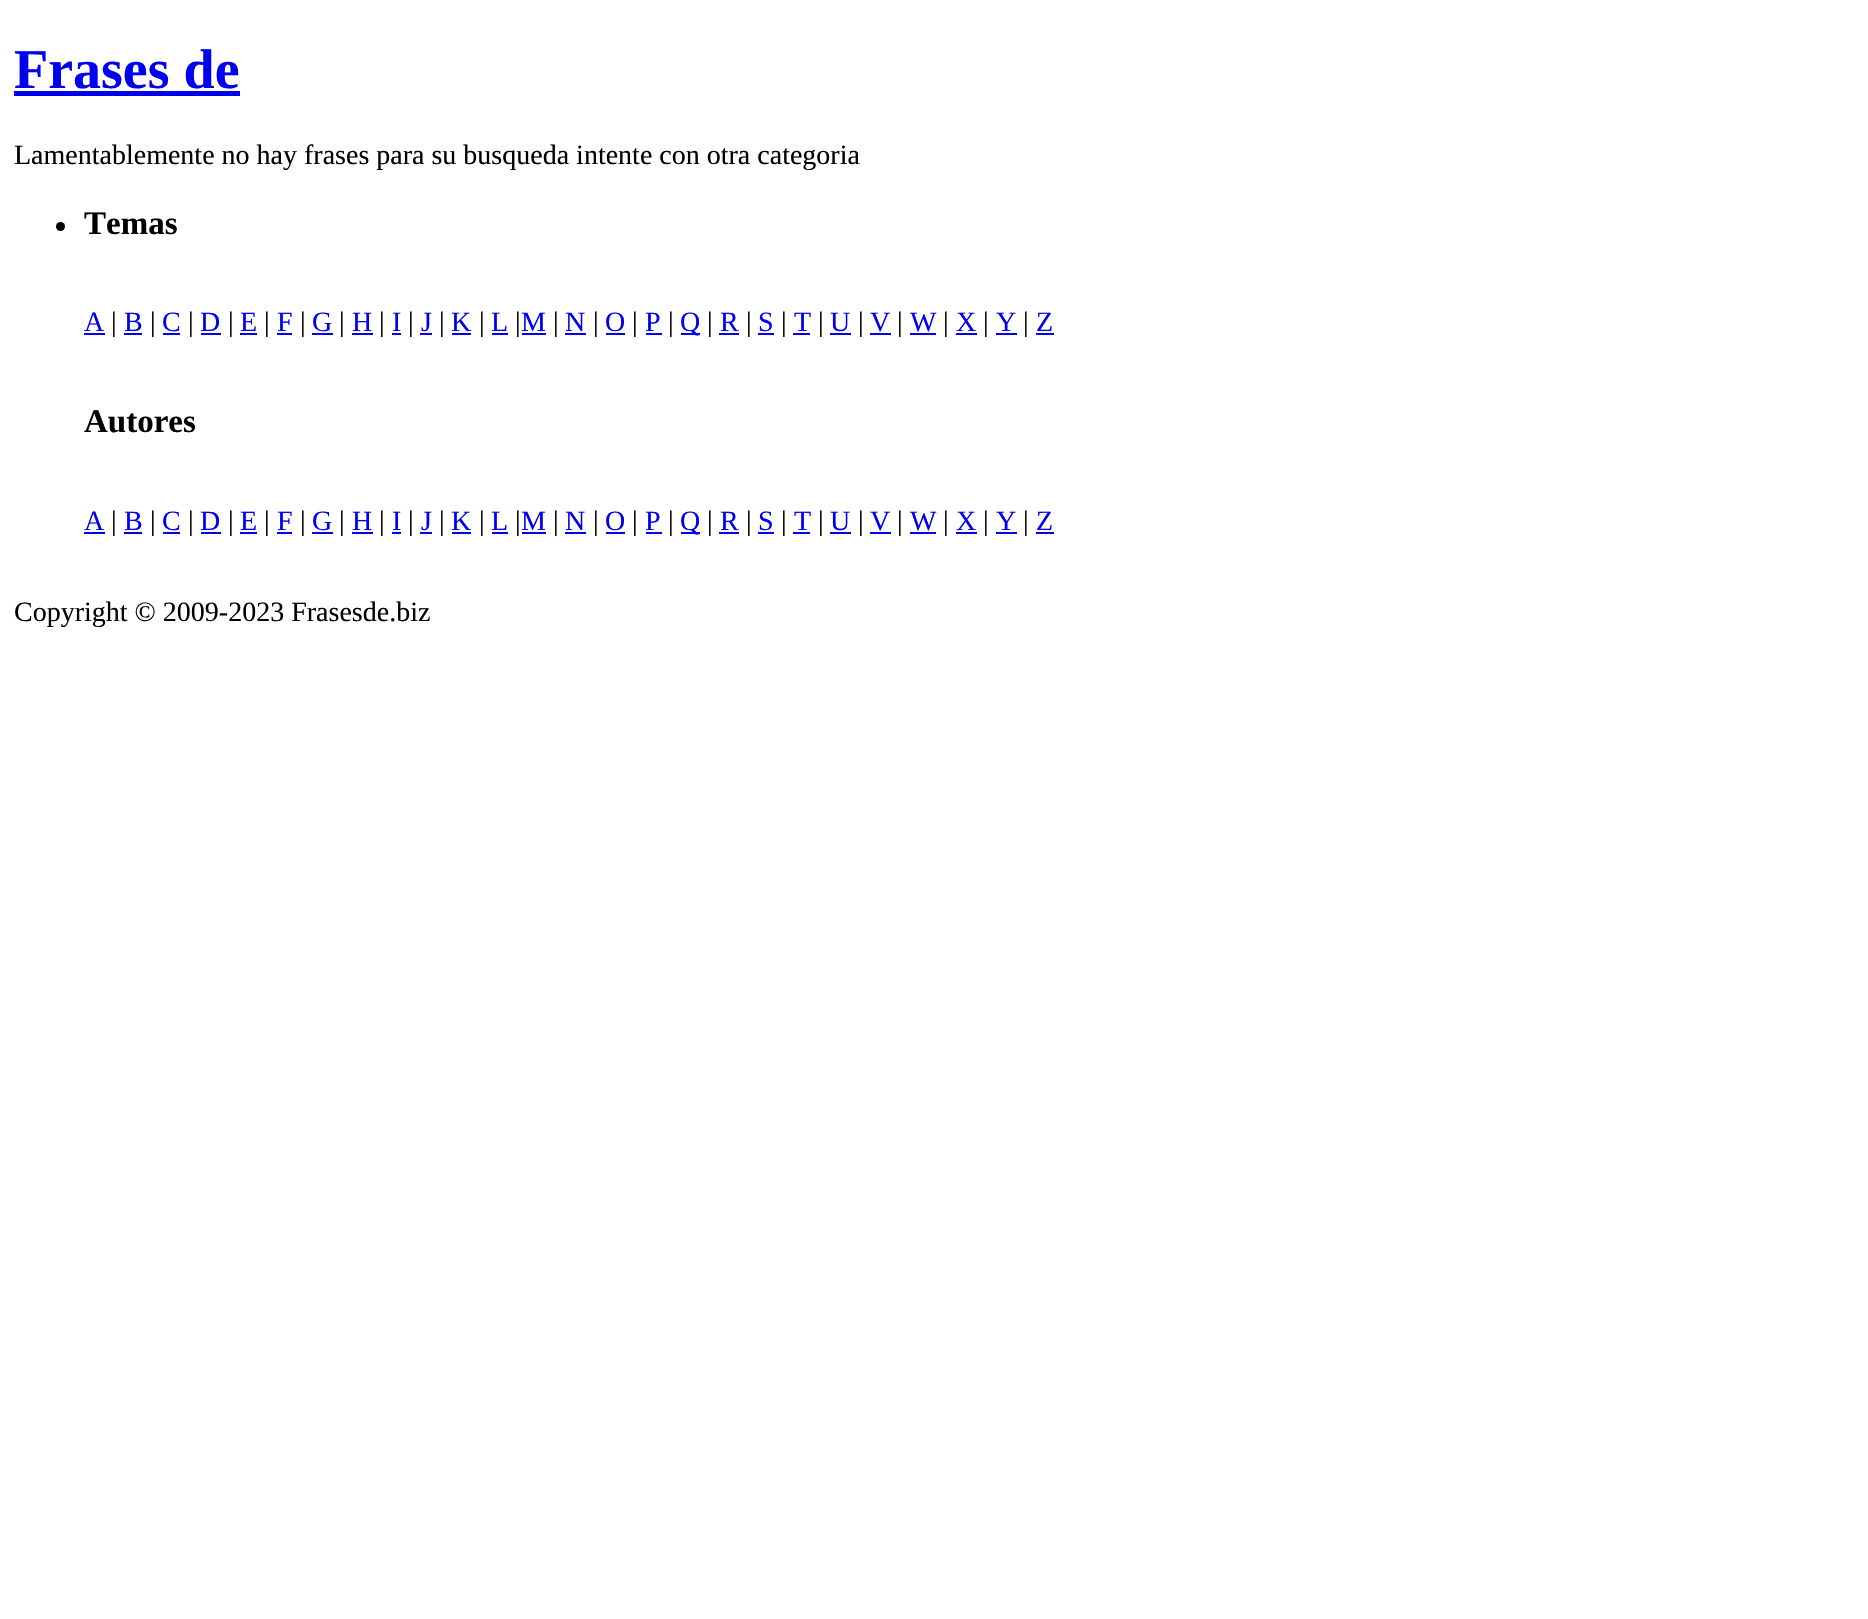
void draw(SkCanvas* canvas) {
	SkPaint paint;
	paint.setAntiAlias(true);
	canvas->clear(0xffffffff);
	SkFont f1(fontMgr->matchFamilyStyle("Liberation Serif", SkFontStyle::Bold()), 56);
	f1.setSubpixel(true);
	paint.setColor(0xff0000ee);
	canvas->drawString("Frases de", 14, 88, f1, paint);
	canvas->drawRect(SkRect::MakeXYWH(14, 91, 226, 5), paint);
	SkFont f2(fontMgr->matchFamilyStyle("Liberation Serif", SkFontStyle::Normal()), 28);
	f2.setSubpixel(true);
	paint.setColor(0xff000000);
	canvas->drawString("Lamentablemente no hay frases para su busqueda intente con otra categoria", 14, 164, f2, paint);
	canvas->drawCircle(60.5, 226.5, 4.5, paint);
	SkFont f3(fontMgr->matchFamilyStyle("Liberation Serif", SkFontStyle::Bold()), 33);
	f3.setSubpixel(true);
	canvas->drawString("Temas", 84, 234, f3, paint);
	paint.setColor(0xff0000ee);
	canvas->drawString("A", 84, 331, f2, paint);
	canvas->drawRect(SkRect::MakeXYWH(84, 333, 21, 2), paint);
	paint.setColor(0xff000000);
	canvas->drawString("|", 111, 331, f2, paint);
	paint.setColor(0xff0000ee);
	canvas->drawString("B", 124, 331, f2, paint);
	canvas->drawRect(SkRect::MakeXYWH(124, 333, 18, 2), paint);
	paint.setColor(0xff000000);
	canvas->drawString("|", 150, 331, f2, paint);
	paint.setColor(0xff0000ee);
	canvas->drawString("C", 162, 331, f2, paint);
	canvas->drawRect(SkRect::MakeXYWH(163, 333, 17, 2), paint);
	paint.setColor(0xff000000);
	canvas->drawString("|", 188, 331, f2, paint);
	paint.setColor(0xff0000ee);
	canvas->drawString("D", 200, 331, f2, paint);
	canvas->drawRect(SkRect::MakeXYWH(201, 333, 20, 2), paint);
	paint.setColor(0xff000000);
	canvas->drawString("|", 228, 331, f2, paint);
	paint.setColor(0xff0000ee);
	canvas->drawString("E", 240, 331, f2, paint);
	canvas->drawRect(SkRect::MakeXYWH(240, 333, 17, 2), paint);
	paint.setColor(0xff000000);
	canvas->drawString("|", 264, 331, f2, paint);
	paint.setColor(0xff0000ee);
	canvas->drawString("F", 277, 331, f2, paint);
	canvas->drawRect(SkRect::MakeXYWH(277, 333, 15, 2), paint);
	paint.setColor(0xff000000);
	canvas->drawString("|", 300, 331, f2, paint);
	paint.setColor(0xff0000ee);
	canvas->drawString("G", 312, 331, f2, paint);
	canvas->drawRect(SkRect::MakeXYWH(312, 333, 21, 2), paint);
	paint.setColor(0xff000000);
	canvas->drawString("|", 339, 331, f2, paint);
	paint.setColor(0xff0000ee);
	canvas->drawString("H", 352, 331, f2, paint);
	canvas->drawRect(SkRect::MakeXYWH(352, 333, 21, 2), paint);
	paint.setColor(0xff000000);
	canvas->drawString("|", 379, 331, f2, paint);
	paint.setColor(0xff0000ee);
	canvas->drawString("I", 392, 331, f2, paint);
	canvas->drawRect(SkRect::MakeXYWH(392, 333, 9, 2), paint);
	paint.setColor(0xff000000);
	canvas->drawString("|", 408, 331, f2, paint);
	paint.setColor(0xff0000ee);
	canvas->drawString("J", 421, 331, f2, paint);
	canvas->drawRect(SkRect::MakeXYWH(420, 333, 12, 2), paint);
	paint.setColor(0xff000000);
	canvas->drawString("|", 439, 331, f2, paint);
	paint.setColor(0xff0000ee);
	canvas->drawString("K", 451, 331, f2, paint);
	canvas->drawRect(SkRect::MakeXYWH(452, 333, 19, 2), paint);
	paint.setColor(0xff000000);
	canvas->drawString("|", 479, 331, f2, paint);
	paint.setColor(0xff0000ee);
	canvas->drawString("L", 491, 331, f2, paint);
	canvas->drawRect(SkRect::MakeXYWH(492, 333, 16, 2), paint);
	paint.setColor(0xff000000);
	canvas->drawString("|", 515, 331, f2, paint);
	paint.setColor(0xff0000ee);
	canvas->drawString("M", 521, 331, f2, paint);
	canvas->drawRect(SkRect::MakeXYWH(522, 333, 24, 2), paint);
	paint.setColor(0xff000000);
	canvas->drawString("|", 553, 331, f2, paint);
	paint.setColor(0xff0000ee);
	canvas->drawString("N", 565, 331, f2, paint);
	canvas->drawRect(SkRect::MakeXYWH(565, 333, 21, 2), paint);
	paint.setColor(0xff000000);
	canvas->drawString("|", 593, 331, f2, paint);
	paint.setColor(0xff0000ee);
	canvas->drawString("O", 605, 331, f2, paint);
	canvas->drawRect(SkRect::MakeXYWH(606, 333, 19, 2), paint);
	paint.setColor(0xff000000);
	canvas->drawString("|", 632, 331, f2, paint);
	paint.setColor(0xff0000ee);
	canvas->drawString("P", 645, 331, f2, paint);
	canvas->drawRect(SkRect::MakeXYWH(646, 333, 16, 2), paint);
	paint.setColor(0xff000000);
	canvas->drawString("|", 668, 331, f2, paint);
	paint.setColor(0xff0000ee);
	canvas->drawRect(SkRect::MakeXYWH(681, 333, 19, 2), paint);
	canvas->drawString("Q", 680, 331, f2, paint);
	paint.setColor(0xff000000);
	canvas->drawString("|", 707, 331, f2, paint);
	paint.setColor(0xff0000ee);
	canvas->drawString("R", 720, 331, f2, paint);
	canvas->drawRect(SkRect::MakeXYWH(719, 333, 20, 2), paint);
	paint.setColor(0xff000000);
	canvas->drawString("|", 746, 331, f2, paint);
	paint.setColor(0xff0000ee);
	canvas->drawString("S", 758, 331, f2, paint);
	canvas->drawRect(SkRect::MakeXYWH(758, 333, 16, 2), paint);
	paint.setColor(0xff000000);
	canvas->drawString("|", 781, 331, f2, paint);
	paint.setColor(0xff0000ee);
	canvas->drawString("T", 794, 331, f2, paint);
	canvas->drawRect(SkRect::MakeXYWH(793, 333, 17, 2), paint);
	paint.setColor(0xff000000);
	canvas->drawString("|", 818, 331, f2, paint);
	paint.setColor(0xff0000ee);
	canvas->drawString("U", 830, 331, f2, paint);
	canvas->drawRect(SkRect::MakeXYWH(830, 333, 21, 2), paint);
	paint.setColor(0xff000000);
	canvas->drawString("|", 858, 331, f2, paint);
	paint.setColor(0xff0000ee);
	canvas->drawString("V", 870, 331, f2, paint);
	canvas->drawRect(SkRect::MakeXYWH(870, 333, 21, 2), paint);
	paint.setColor(0xff000000);
	canvas->drawString("|", 897, 331, f2, paint);
	paint.setColor(0xff0000ee);
	canvas->drawString("W", 910, 331, f2, paint);
	canvas->drawRect(SkRect::MakeXYWH(910, 333, 26, 2), paint);
	paint.setColor(0xff000000);
	canvas->drawString("|", 943, 331, f2, paint);
	paint.setColor(0xff0000ee);
	canvas->drawString("X", 956, 331, f2, paint);
	canvas->drawRect(SkRect::MakeXYWH(956, 333, 21, 2), paint);
	paint.setColor(0xff000000);
	canvas->drawString("|", 983, 331, f2, paint);
	paint.setColor(0xff0000ee);
	canvas->drawString("Y", 996, 331, f2, paint);
	canvas->drawRect(SkRect::MakeXYWH(996, 333, 21, 2), paint);
	paint.setColor(0xff000000);
	canvas->drawString("|", 1023, 331, f2, paint);
	paint.setColor(0xff0000ee);
	canvas->drawString("Z", 1036, 331, f2, paint);
	canvas->drawRect(SkRect::MakeXYWH(1036, 333, 18, 2), paint);
	paint.setColor(0xff000000);
	canvas->drawString("Autores", 84, 432, f3, paint);
	paint.setColor(0xff0000ee);
	canvas->drawString("A", 84, 530, f2, paint);
	canvas->drawRect(SkRect::MakeXYWH(84, 532, 21, 2), paint);
	paint.setColor(0xff000000);
	canvas->drawString("|", 111, 530, f2, paint);
	paint.setColor(0xff0000ee);
	canvas->drawString("B", 124, 530, f2, paint);
	canvas->drawRect(SkRect::MakeXYWH(124, 532, 18, 2), paint);
	paint.setColor(0xff000000);
	canvas->drawString("|", 150, 530, f2, paint);
	paint.setColor(0xff0000ee);
	canvas->drawString("C", 162, 530, f2, paint);
	canvas->drawRect(SkRect::MakeXYWH(163, 532, 17, 2), paint);
	paint.setColor(0xff000000);
	canvas->drawString("|", 188, 530, f2, paint);
	paint.setColor(0xff0000ee);
	canvas->drawString("D", 200, 530, f2, paint);
	canvas->drawRect(SkRect::MakeXYWH(201, 532, 20, 2), paint);
	paint.setColor(0xff000000);
	canvas->drawString("|", 228, 530, f2, paint);
	paint.setColor(0xff0000ee);
	canvas->drawString("E", 240, 530, f2, paint);
	canvas->drawRect(SkRect::MakeXYWH(240, 532, 17, 2), paint);
	paint.setColor(0xff000000);
	canvas->drawString("|", 264, 530, f2, paint);
	paint.setColor(0xff0000ee);
	canvas->drawString("F", 277, 530, f2, paint);
	canvas->drawRect(SkRect::MakeXYWH(277, 532, 15, 2), paint);
	paint.setColor(0xff000000);
	canvas->drawString("|", 300, 530, f2, paint);
	paint.setColor(0xff0000ee);
	canvas->drawString("G", 312, 530, f2, paint);
	canvas->drawRect(SkRect::MakeXYWH(312, 532, 21, 2), paint);
	paint.setColor(0xff000000);
	canvas->drawString("|", 339, 530, f2, paint);
	paint.setColor(0xff0000ee);
	canvas->drawString("H", 352, 530, f2, paint);
	canvas->drawRect(SkRect::MakeXYWH(352, 532, 21, 2), paint);
	paint.setColor(0xff000000);
	canvas->drawString("|", 379, 530, f2, paint);
	paint.setColor(0xff0000ee);
	canvas->drawString("I", 392, 530, f2, paint);
	canvas->drawRect(SkRect::MakeXYWH(392, 532, 9, 2), paint);
	paint.setColor(0xff000000);
	canvas->drawString("|", 408, 530, f2, paint);
	paint.setColor(0xff0000ee);
	canvas->drawString("J", 421, 530, f2, paint);
	canvas->drawRect(SkRect::MakeXYWH(420, 532, 12, 2), paint);
	paint.setColor(0xff000000);
	canvas->drawString("|", 439, 530, f2, paint);
	paint.setColor(0xff0000ee);
	canvas->drawString("K", 451, 530, f2, paint);
	canvas->drawRect(SkRect::MakeXYWH(452, 532, 19, 2), paint);
	paint.setColor(0xff000000);
	canvas->drawString("|", 479, 530, f2, paint);
	paint.setColor(0xff0000ee);
	canvas->drawString("L", 491, 530, f2, paint);
	canvas->drawRect(SkRect::MakeXYWH(492, 532, 16, 2), paint);
	paint.setColor(0xff000000);
	canvas->drawString("|", 515, 530, f2, paint);
	paint.setColor(0xff0000ee);
	canvas->drawString("M", 521, 530, f2, paint);
	canvas->drawRect(SkRect::MakeXYWH(522, 532, 24, 2), paint);
	paint.setColor(0xff000000);
	canvas->drawString("|", 553, 530, f2, paint);
	paint.setColor(0xff0000ee);
	canvas->drawString("N", 565, 530, f2, paint);
	canvas->drawRect(SkRect::MakeXYWH(565, 532, 21, 2), paint);
	paint.setColor(0xff000000);
	canvas->drawString("|", 593, 530, f2, paint);
	paint.setColor(0xff0000ee);
	canvas->drawString("O", 605, 530, f2, paint);
	canvas->drawRect(SkRect::MakeXYWH(606, 532, 19, 2), paint);
	paint.setColor(0xff000000);
	canvas->drawString("|", 632, 530, f2, paint);
	paint.setColor(0xff0000ee);
	canvas->drawString("P", 645, 530, f2, paint);
	canvas->drawRect(SkRect::MakeXYWH(646, 532, 16, 2), paint);
	paint.setColor(0xff000000);
	canvas->drawString("|", 668, 530, f2, paint);
	paint.setColor(0xff0000ee);
	canvas->drawRect(SkRect::MakeXYWH(681, 532, 19, 2), paint);
	canvas->drawString("Q", 680, 530, f2, paint);
	paint.setColor(0xff000000);
	canvas->drawString("|", 707, 530, f2, paint);
	paint.setColor(0xff0000ee);
	canvas->drawString("R", 720, 530, f2, paint);
	canvas->drawRect(SkRect::MakeXYWH(719, 532, 20, 2), paint);
	paint.setColor(0xff000000);
	canvas->drawString("|", 746, 530, f2, paint);
	paint.setColor(0xff0000ee);
	canvas->drawString("S", 758, 530, f2, paint);
	canvas->drawRect(SkRect::MakeXYWH(758, 532, 16, 2), paint);
	paint.setColor(0xff000000);
	canvas->drawString("|", 781, 530, f2, paint);
	paint.setColor(0xff0000ee);
	canvas->drawString("T", 794, 530, f2, paint);
	canvas->drawRect(SkRect::MakeXYWH(793, 532, 17, 2), paint);
	paint.setColor(0xff000000);
	canvas->drawString("|", 818, 530, f2, paint);
	paint.setColor(0xff0000ee);
	canvas->drawString("U", 830, 530, f2, paint);
	canvas->drawRect(SkRect::MakeXYWH(830, 532, 21, 2), paint);
	paint.setColor(0xff000000);
	canvas->drawString("|", 858, 530, f2, paint);
	paint.setColor(0xff0000ee);
	canvas->drawString("V", 870, 530, f2, paint);
	canvas->drawRect(SkRect::MakeXYWH(870, 532, 21, 2), paint);
	paint.setColor(0xff000000);
	canvas->drawString("|", 897, 530, f2, paint);
	paint.setColor(0xff0000ee);
	canvas->drawString("W", 910, 530, f2, paint);
	canvas->drawRect(SkRect::MakeXYWH(910, 532, 26, 2), paint);
	paint.setColor(0xff000000);
	canvas->drawString("|", 943, 530, f2, paint);
	paint.setColor(0xff0000ee);
	canvas->drawString("X", 956, 530, f2, paint);
	canvas->drawRect(SkRect::MakeXYWH(956, 532, 21, 2), paint);
	paint.setColor(0xff000000);
	canvas->drawString("|", 983, 530, f2, paint);
	paint.setColor(0xff0000ee);
	canvas->drawString("Y", 996, 530, f2, paint);
	canvas->drawRect(SkRect::MakeXYWH(996, 532, 21, 2), paint);
	paint.setColor(0xff000000);
	canvas->drawString("|", 1023, 530, f2, paint);
	paint.setColor(0xff0000ee);
	canvas->drawString("Z", 1036, 530, f2, paint);
	canvas->drawRect(SkRect::MakeXYWH(1036, 532, 18, 2), paint);
	paint.setColor(0xff000000);
	canvas->drawString("Copyright © 2009-2023 Frasesde.biz", 14, 621, f2, paint);
}
